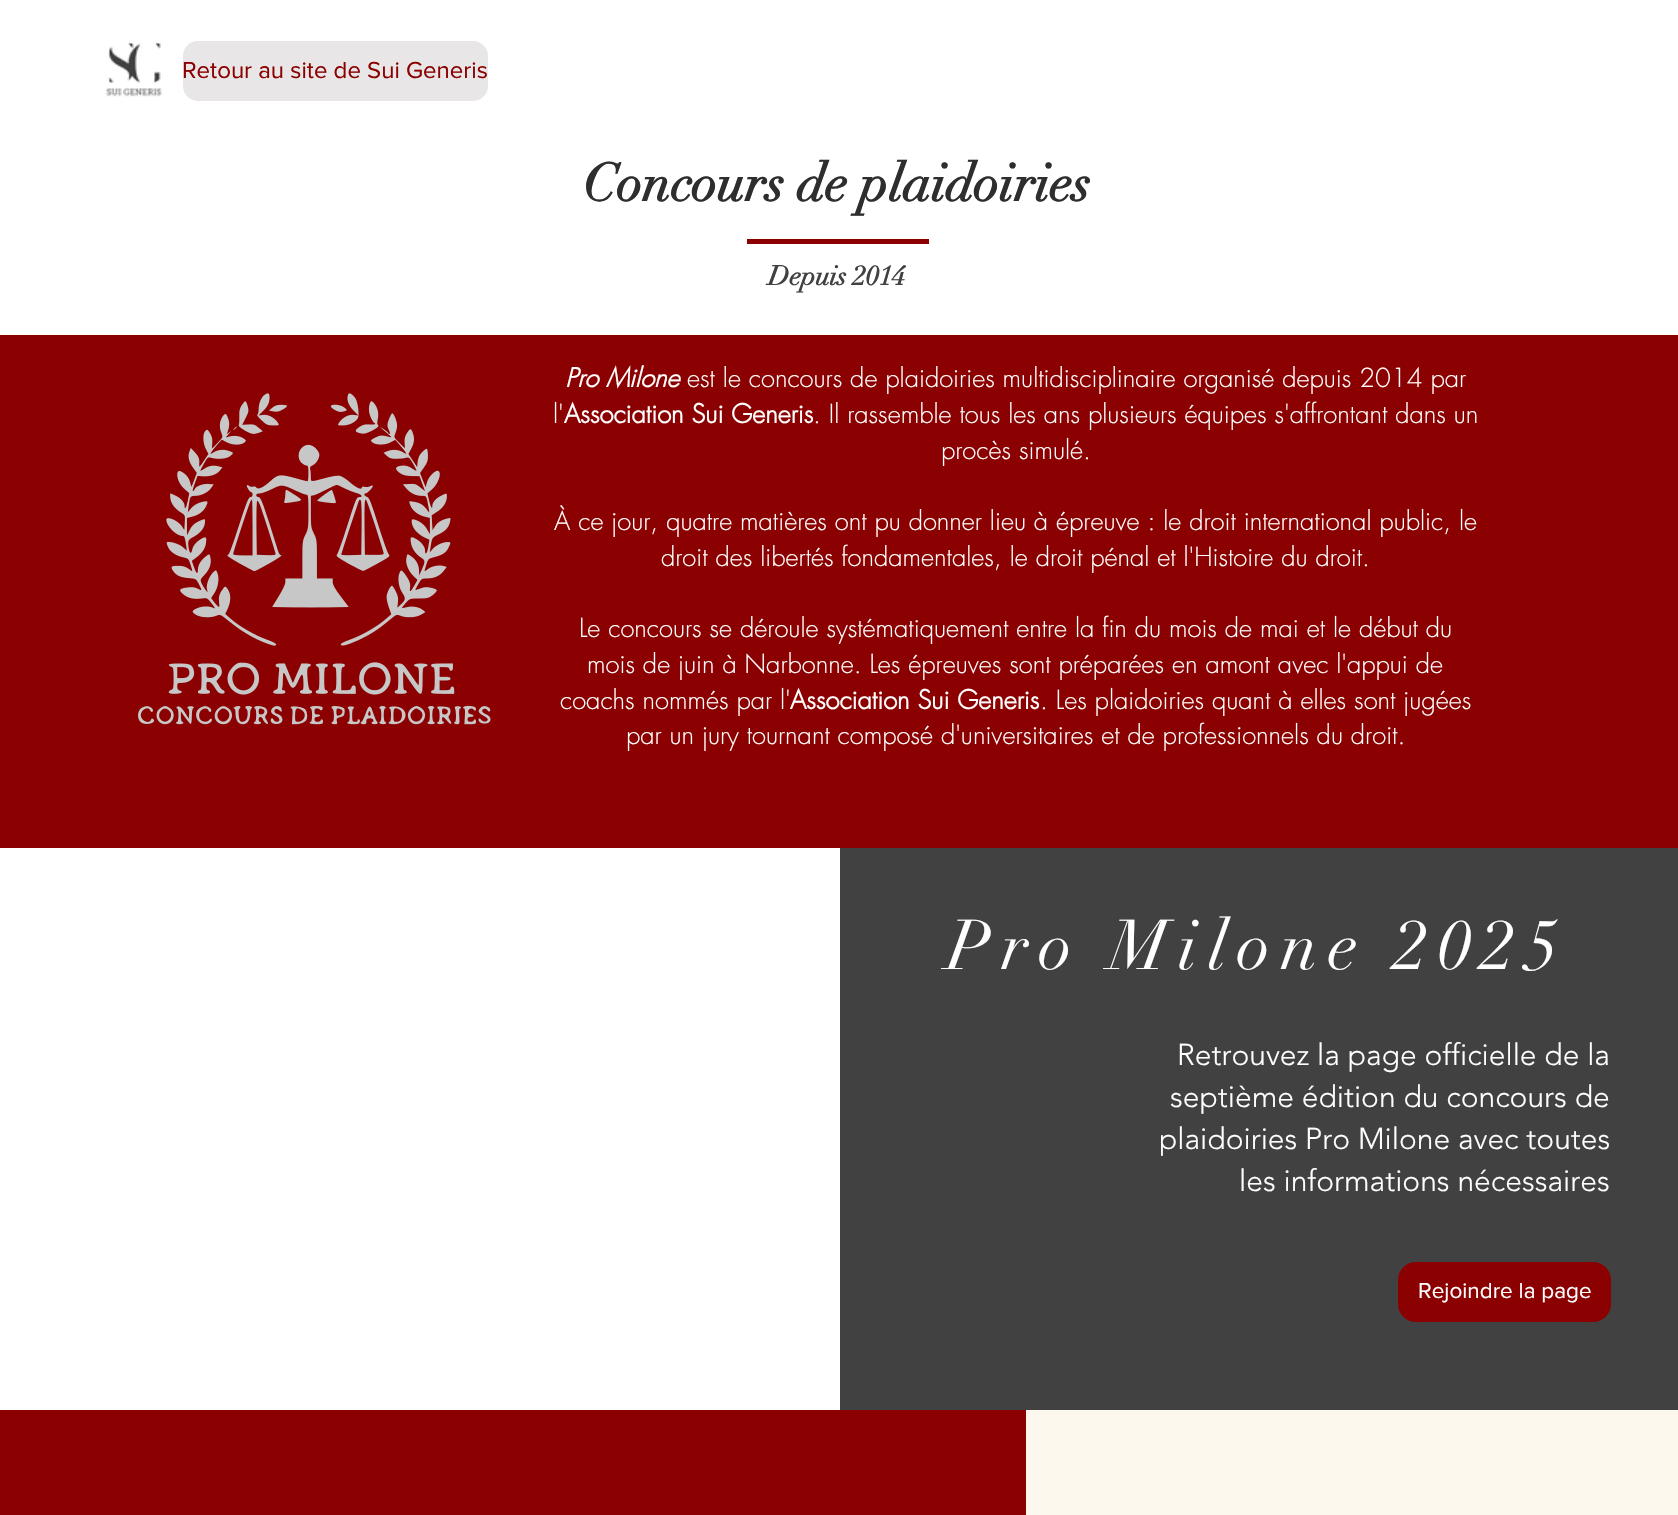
void draw(SkCanvas* canvas) {
	SkPaint paint;
	paint.setAntiAlias(true);
	auto spacedText = [&](const char* s, float x, float y, const SkFont& font, const SkPaint& ink, float letter, float word) {
		std::vector<SkGlyphID> glyphs(font.countText(s, strlen(s), SkTextEncoding::kUTF8));
		std::vector<float> xs(glyphs.size());
		font.textToGlyphs(s, strlen(s), SkTextEncoding::kUTF8, glyphs);
		font.getXPos(glyphs, xs, x);
		float extra = 0;
		for (size_t i = 0; i < glyphs.size(); i++) {
			xs[i] += extra;
			extra += letter + word * (glyphs[i] == font.unicharToGlyph(' '));
		}
		canvas->drawTextBlob(SkTextBlob::MakeFromPosHGlyphs(glyphs, xs, y, font), 0, 0, ink);
	};
	canvas->clear(0xffffffff);
	canvas->drawImageRect(SkImages::DeferredFromEncodedData(SkData::MakeFromFileName("img1.png")), SkRect::MakeXYWH(106, 42, 57, 55), SkSamplingOptions());
	paint.setColor(0xffe8e6e6);
	canvas->drawRoundRect(SkRect::MakeXYWH(183, 41, 305, 60), 15, 15, paint);
	SkFont f1(fontMgr->matchFamilyStyle("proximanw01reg", SkFontStyle::Normal()), 24);
	f1.setSubpixel(true);
	paint.setColor(0xff8b0000);
	canvas->drawString("Retour au site de Sui Generis", 182, 78, f1, paint);
	SkFont f2(fontMgr->matchFamilyStyle("didot", SkFontStyle::Bold()), 52.5);
	f2.setSubpixel(true);
	paint.setColor(0xff2f2e2e);
	canvas->drawString("Concours de plaidoiries", 583, 201, f2, paint);
	paint.setColor(0xff8b0000);
	canvas->drawRect(SkRect::MakeXYWH(747, 239, 182, 5), paint);
	SkFont f3(fontMgr->matchFamilyStyle("didot", SkFontStyle::Bold()), 27);
	f3.setSubpixel(true);
	paint.setColor(0xff414141);
	canvas->drawString("Depuis 2014", 768, 285, f3, paint);
	paint.setColor(0xff8b0000);
	canvas->drawRect(SkRect::MakeXYWH(0, 335, 1678, 513), paint);
	canvas->drawImageRect(SkImages::DeferredFromEncodedData(SkData::MakeFromFileName("img2.png")), SkRect::MakeXYWH(138, 393, 353, 332), SkSamplingOptions());
	SkFont f4(fontMgr->matchFamilyStyle("futura", SkFontStyle::BoldItalic()), 25.5);
	f4.setSubpixel(true);
	paint.setColor(0xffffffff);
	canvas->drawString("Pro Milone", 565, 387, f4, paint);
	SkFont f5(fontMgr->matchFamilyStyle("futura", SkFontStyle(300, SkFontStyle::kNormal_Width, SkFontStyle::kUpright_Slant)), 25.5);
	f5.setSubpixel(true);
	canvas->drawString("est le concours de plaidoiries multidisciplinaire organisé depuis 2014 par", 687, 387, f5, paint);
	canvas->drawString("l'", 553, 423, f5, paint);
	SkFont f6(fontMgr->matchFamilyStyle("futura", SkFontStyle::Bold()), 25.5);
	f6.setSubpixel(true);
	canvas->drawString("Association Sui Generis", 564, 423, f6, paint);
	canvas->drawString(". Il rassemble tous les ans plusieurs équipes s'affrontant dans un", 813, 423, f5, paint);
	canvas->drawString("procès simulé.", 941, 459, f5, paint);
	canvas->drawString("À ce jour, quatre matières ont pu donner lieu à épreuve : le droit international public, le", 554, 530, f5, paint);
	canvas->drawString("droit des libertés fondamentales, le droit pénal et l'Histoire du droit.", 661, 566, f5, paint);
	canvas->drawString("Le concours se déroule systématiquement entre la fin du mois de mai et le début du", 579, 637, f5, paint);
	canvas->drawString("mois de juin à Narbonne. Les épreuves sont préparées en amont avec l'appui de", 587, 673, f5, paint);
	canvas->drawString("coachs nommés par l'", 560, 709, f5, paint);
	canvas->drawString("Association Sui Generis", 790, 709, f6, paint);
	canvas->drawString(". Les plaidoiries quant à elles sont jugées", 1040, 709, f5, paint);
	canvas->drawString("par un jury tournant composé d'universitaires et de professionnels du droit.", 626, 744, f5, paint);
	paint.setColor(0xff414141);
	canvas->drawRect(SkRect::MakeXYWH(840, 848, 838, 562), paint);
	SkFont f7(fontMgr->matchFamilyStyle("didot", SkFontStyle::Normal()), 69);
	f7.setSubpixel(true);
	paint.setColor(0xffffffff);
	spacedText("Pro Milone 2025", 947, 969, f7, paint, 10.3, 0);
	SkFont f8(fontMgr->matchFamilyStyle("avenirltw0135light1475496", SkFontStyle(300, SkFontStyle::kNormal_Width, SkFontStyle::kUpright_Slant)), 30);
	f8.setSubpixel(true);
	canvas->drawString("Retrouvez la page officielle de la", 1177, 1065, f8, paint);
	canvas->drawString("septième édition du concours de", 1170, 1107, f8, paint);
	canvas->drawString("plaidoiries Pro Milone avec toutes", 1159, 1149, f8, paint);
	canvas->drawString("les informations nécessaires", 1239, 1191, f8, paint);
	paint.setColor(0xff8b0000);
	canvas->drawRoundRect(SkRect::MakeXYWH(1398, 1262, 213, 60), 18, 18, paint);
	SkFont f9(fontMgr->matchFamilyStyle("proximanw01reg", SkFontStyle::Normal()), 22.5);
	f9.setSubpixel(true);
	paint.setColor(0xffffffff);
	canvas->drawString("Rejoindre la page", 1418, 1298, f9, paint);
	paint.setColor(0xff8b0000);
	canvas->drawRect(SkRect::MakeXYWH(0, 1410, 1026, 105), paint);
	paint.setColor(0xfffcf8ed);
	canvas->drawRect(SkRect::MakeXYWH(1026, 1410, 652, 105), paint);
}
